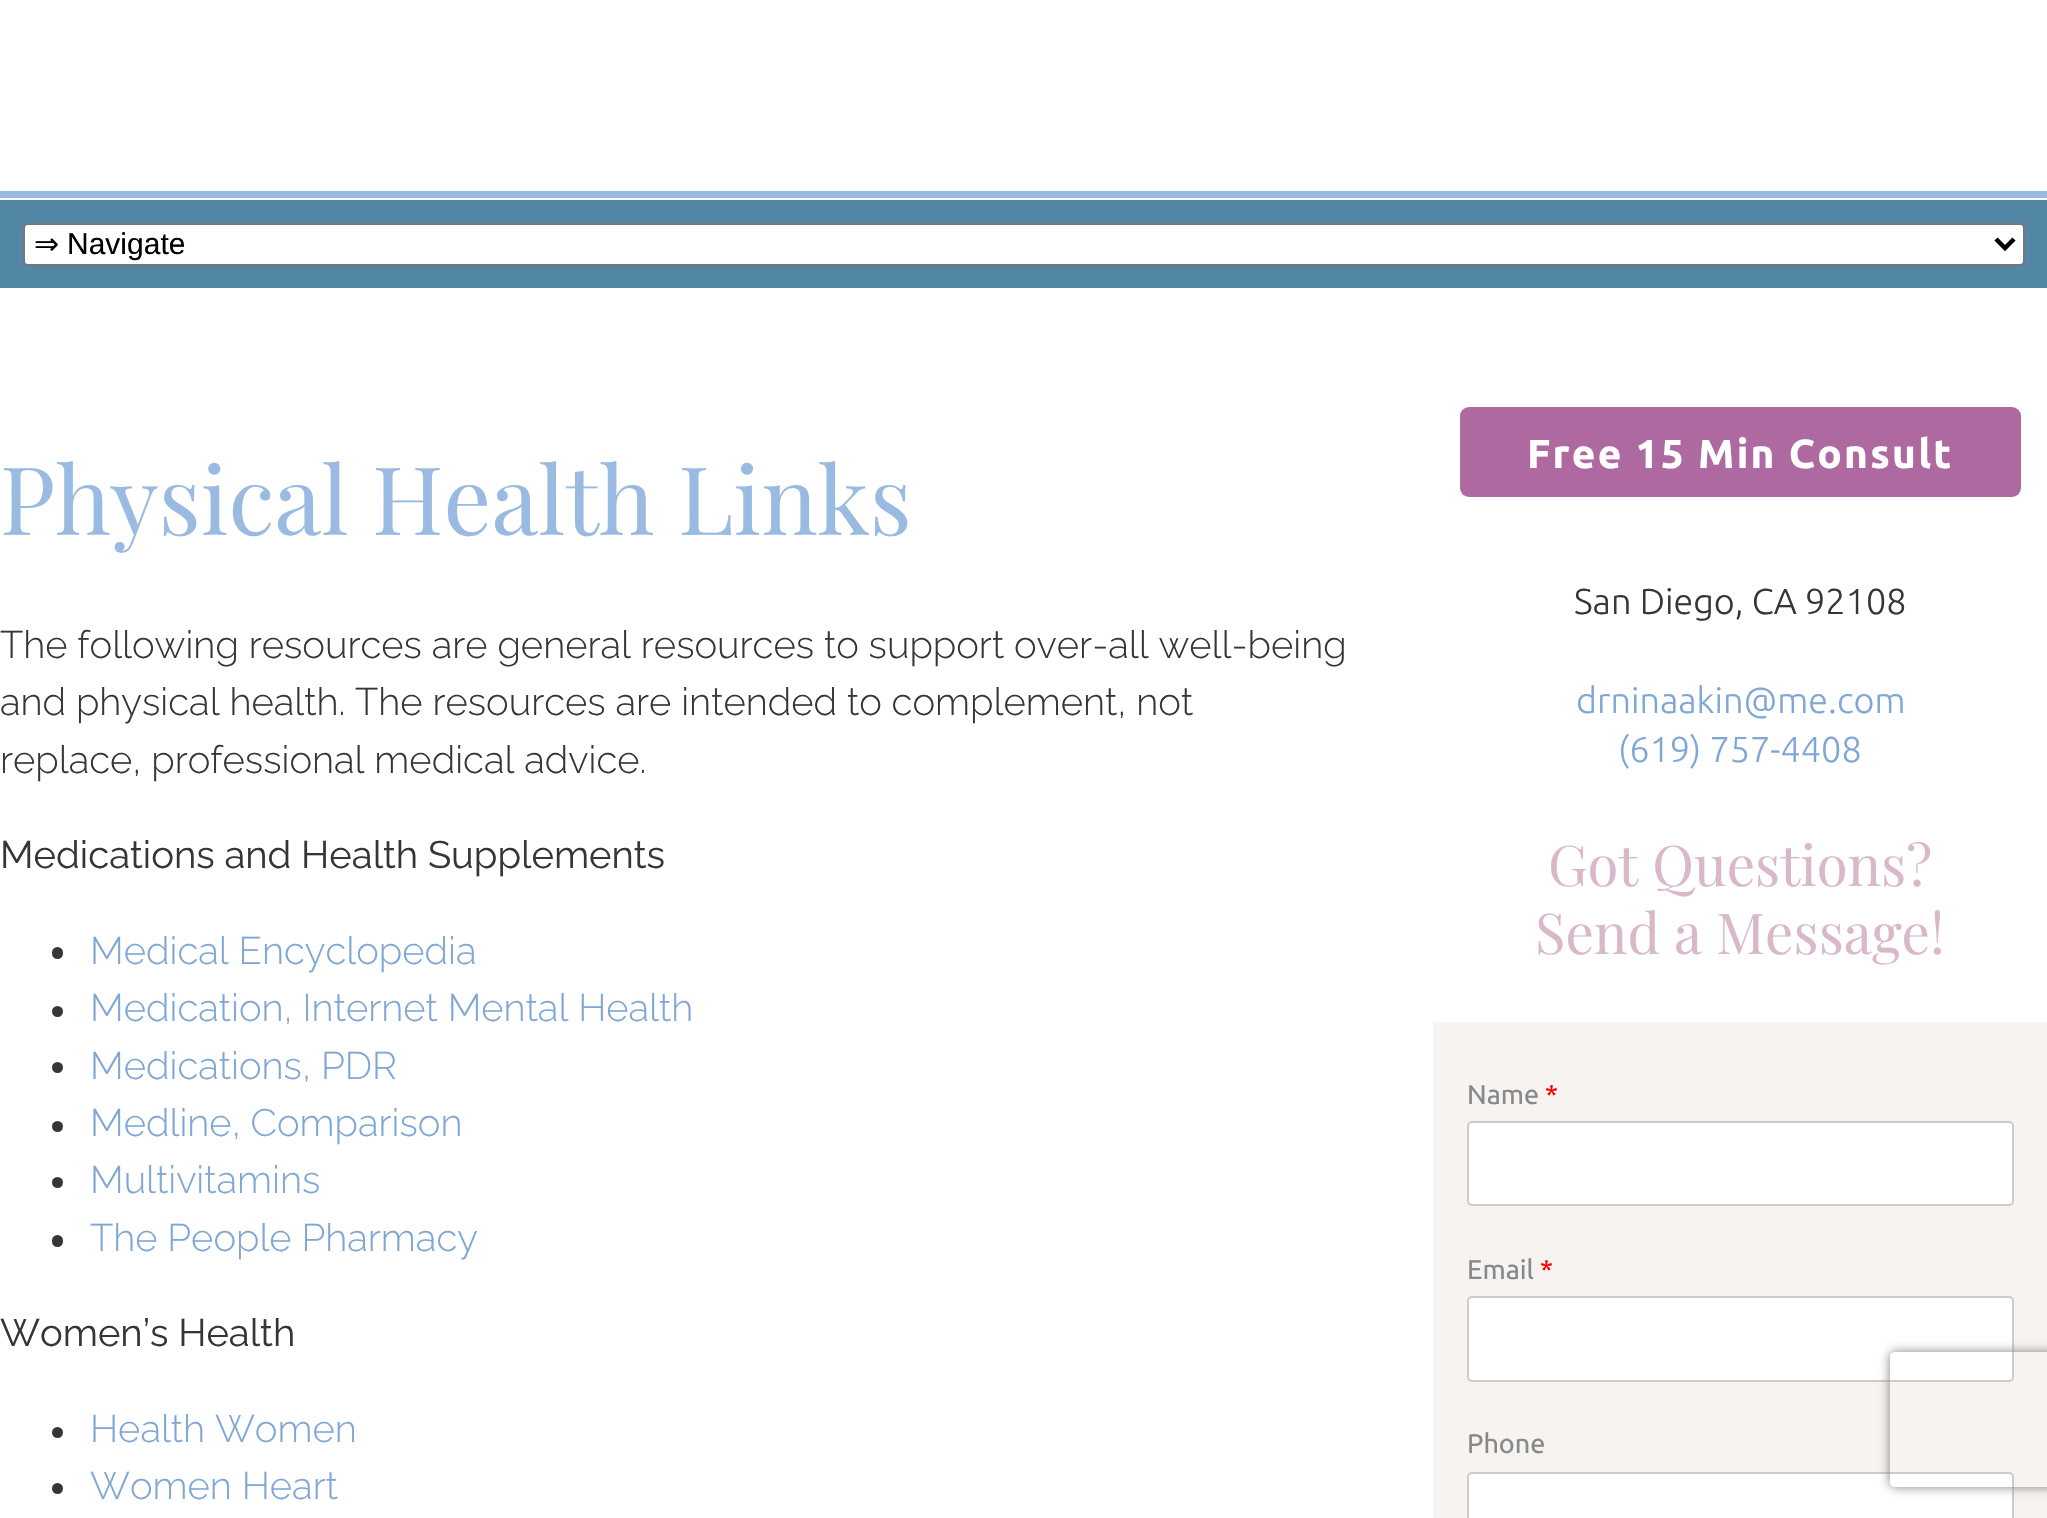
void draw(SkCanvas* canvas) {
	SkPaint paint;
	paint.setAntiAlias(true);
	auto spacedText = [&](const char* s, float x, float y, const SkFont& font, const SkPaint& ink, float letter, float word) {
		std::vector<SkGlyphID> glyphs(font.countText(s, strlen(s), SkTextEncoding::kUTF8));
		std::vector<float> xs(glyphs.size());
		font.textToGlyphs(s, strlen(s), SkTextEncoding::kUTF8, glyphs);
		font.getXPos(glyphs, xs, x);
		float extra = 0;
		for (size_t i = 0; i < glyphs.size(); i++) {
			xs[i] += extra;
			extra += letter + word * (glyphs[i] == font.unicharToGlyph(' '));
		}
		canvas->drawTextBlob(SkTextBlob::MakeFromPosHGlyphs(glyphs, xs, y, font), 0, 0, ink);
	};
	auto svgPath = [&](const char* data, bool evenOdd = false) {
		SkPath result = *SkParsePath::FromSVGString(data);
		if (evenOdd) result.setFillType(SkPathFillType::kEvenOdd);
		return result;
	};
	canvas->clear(0xffffffff);
	paint.setColor(0xff9abbe1);
	canvas->drawRect(SkRect::MakeXYWH(0, 191, 2047, 7), paint);
	paint.setColor(0xff5286a5);
	canvas->drawRect(SkRect::MakeXYWH(0, 200, 2047, 88), paint);
	paint.setColor(0xffffffff);
	canvas->drawRoundRect(SkRect::MakeXYWH(24, 224, 2000, 41), 4, 4, paint);
	paint.setStroke(true);
	paint.setStrokeWidth(2);
	paint.setColor(0xff767676);
	canvas->drawRoundRect(SkRect::MakeXYWH(24, 224, 2000, 41), 4, 4, paint);
	paint.setStrokeWidth(4.5);
	paint.setColor(0xff000000);
	canvas->drawPath(svgPath("M1996 239L2005 248L2014 239"), paint);
	SkFont f1(fontMgr->matchFamilyStyle("DejaVu Sans", SkFontStyle::Normal()), 30);
	f1.setSubpixel(true);
	paint.setStroke(false);
	canvas->drawString("⇒", 34, 254, f1, paint);
	SkFont f2(fontMgr->matchFamilyStyle("Liberation Sans", SkFontStyle::Normal()), 30);
	f2.setSubpixel(true);
	canvas->drawString("Navigate", 67, 254, f2, paint);
	SkFont f3(fontMgr->matchFamilyStyle("Playfair Display", SkFontStyle::Normal()), 94.5);
	f3.setSubpixel(true);
	paint.setColor(0xff9abbe1);
	canvas->drawString("Physical Health Links", 0, 535, f3, paint);
	SkFont f4(fontMgr->matchFamilyStyle("Raleway", SkFontStyle(100, SkFontStyle::kNormal_Width, SkFontStyle::kUpright_Slant)), 38.25);
	f4.setSubpixel(true);
	paint.setColor(0xff363636);
	canvas->drawString("The following resources are general resources to support over-all well-being", 0, 658, f4, paint);
	canvas->drawString("and physical health. The resources are intended to complement, not", 0, 715, f4, paint);
	canvas->drawString("replace, professional medical advice.", 0, 773, f4, paint);
	SkFont f5(fontMgr->matchFamilyStyle("Raleway", SkFontStyle::Normal()), 38.25);
	f5.setSubpixel(true);
	canvas->drawString("Medications and Health Supplements", 0, 868, f5, paint);
	canvas->drawRoundRect(SkRect::MakeXYWH(52, 947, 11, 12), 5.5, 5.5, paint);
	paint.setColor(0xff7fa7d5);
	canvas->drawString("Medical Encyclopedia", 90, 964, f4, paint);
	paint.setColor(0xff363636);
	canvas->drawCircle(57.5, 1011.5, 5.5, paint);
	paint.setColor(0xff7fa7d5);
	canvas->drawString("Medication, Internet Mental Health", 90, 1021, f4, paint);
	paint.setColor(0xff363636);
	canvas->drawCircle(57.5, 1067.5, 5.5, paint);
	paint.setColor(0xff7fa7d5);
	canvas->drawString("Medications, PDR", 90, 1079, f4, paint);
	paint.setColor(0xff363636);
	canvas->drawCircle(57.5, 1126.5, 5.5, paint);
	paint.setColor(0xff7fa7d5);
	canvas->drawString("Medline, Comparison", 90, 1136, f4, paint);
	paint.setColor(0xff363636);
	canvas->drawCircle(57.5, 1182.5, 5.5, paint);
	paint.setColor(0xff7fa7d5);
	canvas->drawString("Multivitamins", 90, 1193, f4, paint);
	paint.setColor(0xff363636);
	canvas->drawRoundRect(SkRect::MakeXYWH(52, 1235, 11, 12), 5.5, 5.5, paint);
	paint.setColor(0xff7fa7d5);
	canvas->drawString("The People Pharmacy", 90, 1251, f4, paint);
	paint.setColor(0xff363636);
	canvas->drawString("Women’s Health", 0, 1346, f5, paint);
	canvas->drawCircle(57.5, 1432.5, 5.5, paint);
	paint.setColor(0xff7fa7d5);
	canvas->drawString("Health Women", 90, 1442, f4, paint);
	paint.setColor(0xff363636);
	canvas->drawCircle(57.5, 1488.5, 5.5, paint);
	paint.setColor(0xff7fa7d5);
	canvas->drawString("Women Heart", 90, 1499, f4, paint);
	paint.setColor(0xffae69a0);
	canvas->drawRoundRect(SkRect::MakeXYWH(1460, 407, 561, 90), 9, 9, paint);
	SkFont f6(fontMgr->matchFamilyStyle("Ubuntu", SkFontStyle::Bold()), 40.5);
	f6.setSubpixel(true);
	paint.setColor(0xffffffff);
	spacedText("Free 15 Min Consult", 1527, 468, f6, paint, 2.25, 0);
	SkFont f7(fontMgr->matchFamilyStyle("Ubuntu", SkFontStyle(300, SkFontStyle::kNormal_Width, SkFontStyle::kUpright_Slant)), 36);
	f7.setSubpixel(true);
	paint.setColor(0xff363636);
	canvas->drawString("San Diego, CA 92108", 1574, 614, f7, paint);
	paint.setColor(0xff7fa7d5);
	canvas->drawString("drninaakin@me.com", 1576, 713, f7, paint);
	canvas->drawString("(619) 757-4408", 1618, 762, f7, paint);
	SkFont f8(fontMgr->matchFamilyStyle("Playfair Display", SkFontStyle::Normal()), 56.25);
	f8.setSubpixel(true);
	paint.setColor(0xffd8b8c9);
	canvas->drawString("Got Questions?", 1548, 886, f8, paint);
	canvas->drawString("Send a Message!", 1535, 954, f8, paint);
	paint.setColor(0xfff6f3f0);
	canvas->drawRect(SkRect::MakeXYWH(1433, 1022, 614, 496), paint);
	SkFont f9(fontMgr->matchFamilyStyle("Ubuntu", SkFontStyle::Normal()), 27);
	f9.setSubpixel(true);
	paint.setColor(0xff898989);
	canvas->drawString("Name", 1467, 1104, f9, paint);
	paint.setColor(0xffff0000);
	canvas->drawString("*", 1545, 1104, f9, paint);
	paint.setColor(0xffffffff);
	canvas->drawRoundRect(SkRect::MakeXYWH(1468, 1122, 545, 83), 4, 4, paint);
	paint.setStroke(true);
	paint.setStrokeWidth(2);
	paint.setColor(0xffcccccc);
	canvas->drawRoundRect(SkRect::MakeXYWH(1468, 1122, 545, 83), 4, 4, paint);
	paint.setStroke(false);
	paint.setColor(0xff898989);
	canvas->drawString("Email", 1467, 1279, f9, paint);
	paint.setColor(0xffff0000);
	canvas->drawString("*", 1540, 1279, f9, paint);
	paint.setColor(0xffffffff);
	canvas->drawRoundRect(SkRect::MakeXYWH(1468, 1297, 545, 84), 4, 4, paint);
	paint.setStroke(true);
	paint.setColor(0xffcccccc);
	canvas->drawRoundRect(SkRect::MakeXYWH(1468, 1297, 545, 84), 4, 4, paint);
	paint.setStroke(false);
	paint.setColor(0xff898989);
	canvas->drawString("Phone", 1467, 1453, f9, paint);
	paint.setColor(0xffffffff);
	canvas->drawRoundRect(SkRect::MakeXYWH(1468, 1473, 545, 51), 4, 4, paint);
	paint.setStroke(true);
	paint.setColor(0xffcccccc);
	canvas->drawRoundRect(SkRect::MakeXYWH(1468, 1473, 545, 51), 4, 4, paint);
	canvas->save();
	canvas->clipPath(svgPath("M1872 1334H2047V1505H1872ZM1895 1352H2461C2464 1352 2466 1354 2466 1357V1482C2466 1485 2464 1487 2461 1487H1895C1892 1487 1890 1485 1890 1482V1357C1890 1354 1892 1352 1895 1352Z", true), true);
	paint.setStroke(false);
	paint.setColor(0xff808080);
	paint.setMaskFilter(SkMaskFilter::MakeBlur(kNormal_SkBlurStyle, 5.5));
	canvas->drawRoundRect(SkRect::MakeXYWH(1890, 1352, 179, 135), 5, 5, paint);
	paint.setMaskFilter(nullptr);
	canvas->restore();
}
